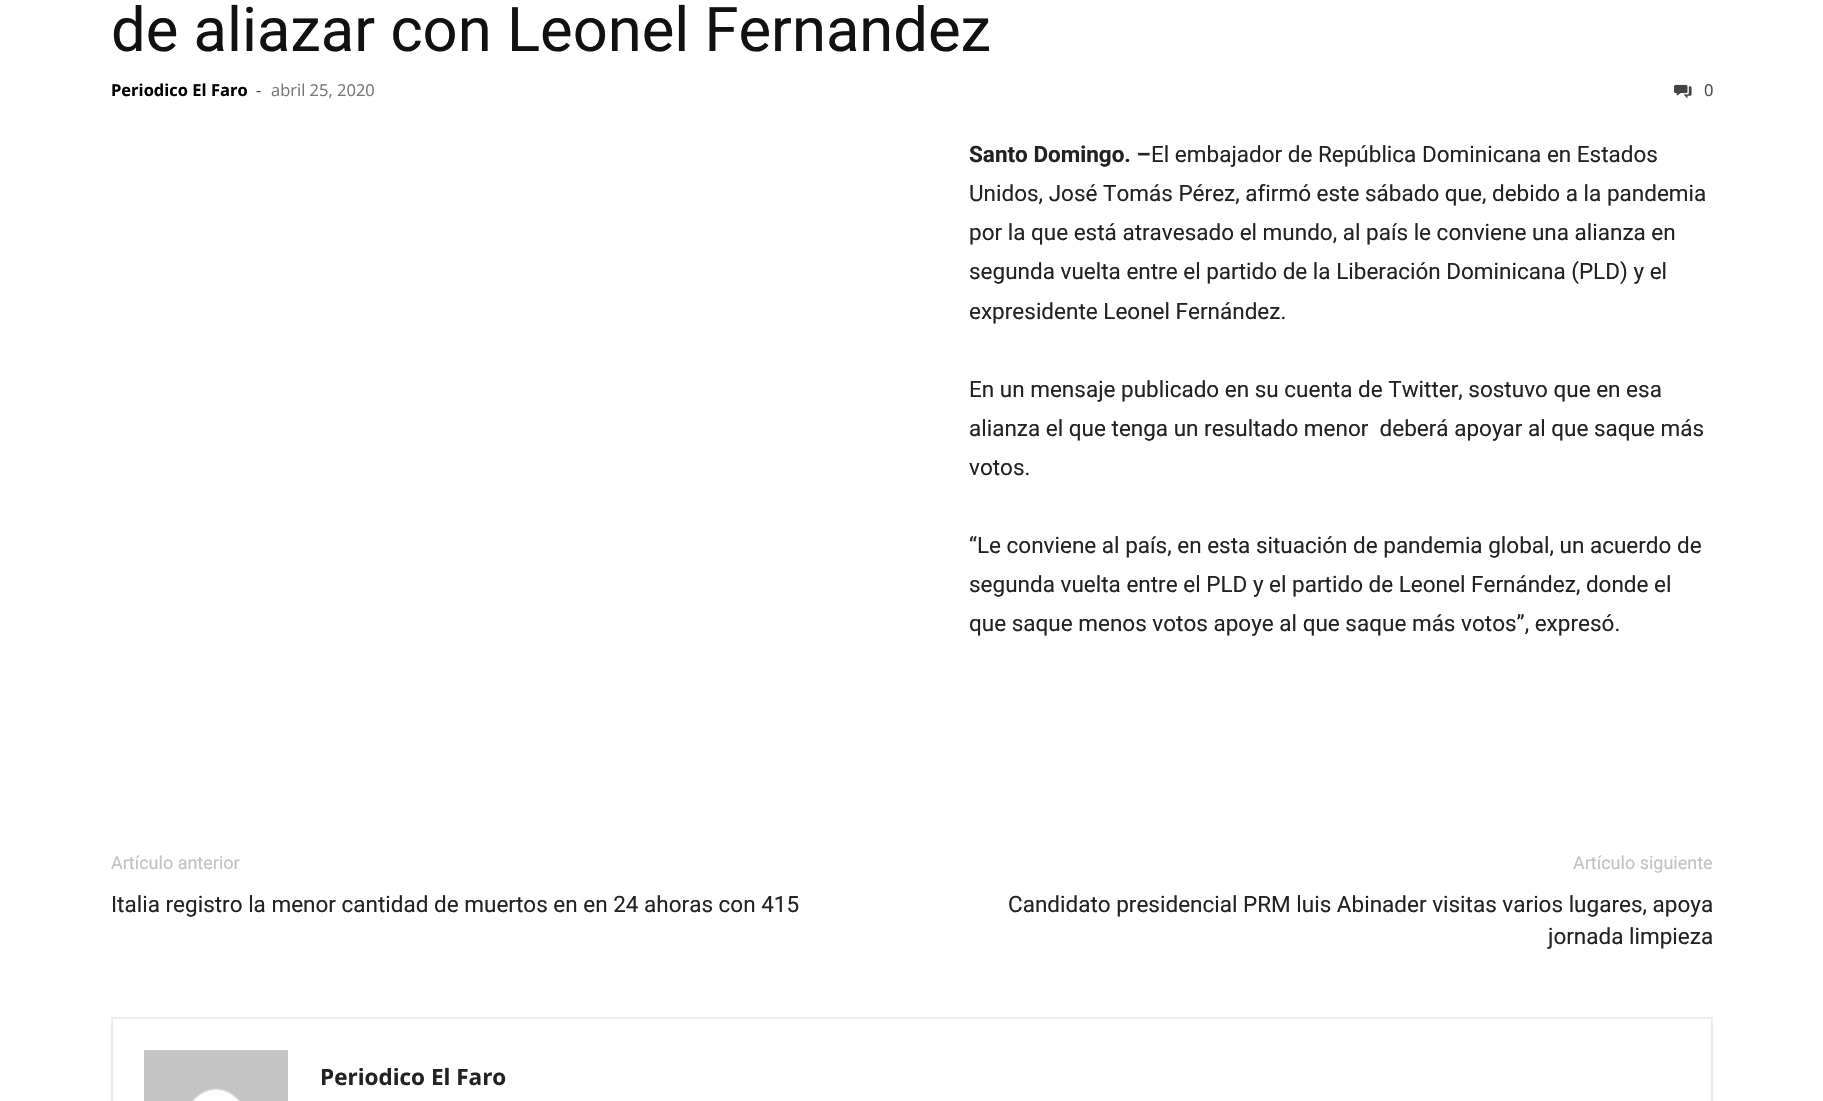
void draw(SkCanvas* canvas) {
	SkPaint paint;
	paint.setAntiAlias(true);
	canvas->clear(0xffffffff);
	SkFont f1(fontMgr->matchFamilyStyle("Roboto", SkFontStyle::Normal()), 61.5);
	f1.setSubpixel(true);
	paint.setColor(0xff111111);
	canvas->drawString("de aliazar con Leonel Fernandez", 111, 51, f1, paint);
	SkFont f2(fontMgr->matchFamilyStyle("Open Sans", SkFontStyle::Bold()), 16.5);
	f2.setSubpixel(true);
	paint.setColor(0xff000000);
	canvas->drawString("Periodico El Faro", 111, 96, f2, paint);
	SkFont f3(fontMgr->matchFamilyStyle("Open Sans", SkFontStyle::Normal()), 16.5);
	f3.setSubpixel(true);
	paint.setColor(0xff444444);
	canvas->drawString("-", 256, 96, f3, paint);
	paint.setColor(0xff767676);
	canvas->drawString("abril 25, 2020", 271, 96, f3, paint);
	canvas->drawImageRect(SkImages::DeferredFromEncodedData(SkData::MakeFromFileName("img1.png")), SkRect::MakeXYWH(1674, 84, 18, 15), SkSamplingOptions());
	paint.setColor(0xff444444);
	canvas->drawString("0", 1704, 96, f3, paint);
	SkFont f4(fontMgr->matchFamilyStyle("Roboto", SkFontStyle::Bold()), 22.5);
	f4.setSubpixel(true);
	paint.setColor(0xff222222);
	canvas->drawString("Santo Domingo. –", 969, 162, f4, paint);
	SkFont f5(fontMgr->matchFamilyStyle("Roboto", SkFontStyle::Normal()), 22.5);
	f5.setSubpixel(true);
	canvas->drawString("El embajador de República Dominicana en Estados", 1151, 162, f5, paint);
	canvas->drawString("Unidos, José Tomás Pérez, afirmó este sábado que, debido a la pandemia", 969, 201, f5, paint);
	canvas->drawString("por la que está atravesado el mundo, al país le conviene una alianza en", 969, 240, f5, paint);
	canvas->drawString("segunda vuelta entre el partido de la Liberación Dominicana (PLD) y el", 969, 279, f5, paint);
	canvas->drawString("expresidente Leonel Fernández.", 969, 319, f5, paint);
	canvas->drawString("En un mensaje publicado en su cuenta de Twitter, sostuvo que en esa", 969, 397, f5, paint);
	canvas->drawString("alianza el que tenga un resultado menor  deberá apoyar al que saque más", 969, 436, f5, paint);
	canvas->drawString("votos.", 969, 475, f5, paint);
	canvas->drawString("“Le conviene al país, en esta situación de pandemia global, un acuerdo de", 969, 553, f5, paint);
	canvas->drawString("segunda vuelta entre el PLD y el partido de Leonel Fernández, donde el", 969, 592, f5, paint);
	canvas->drawString("que saque menos votos apoye al que saque más votos”, expresó.", 969, 631, f5, paint);
	SkFont f6(fontMgr->matchFamilyStyle("Roboto", SkFontStyle::Normal()), 18);
	f6.setSubpixel(true);
	paint.setColor(0xffc1c1c1);
	canvas->drawString("Artículo anterior", 111, 869, f6, paint);
	paint.setColor(0xff222222);
	canvas->drawString("Italia registro la menor cantidad de muertos en en 24 ahoras con 415", 111, 912, f5, paint);
	paint.setColor(0xffc1c1c1);
	canvas->drawString("Artículo siguiente", 1573, 869, f6, paint);
	paint.setColor(0xff222222);
	canvas->drawString("Candidato presidencial PRM luis Abinader visitas varios lugares, apoya", 1008, 912, f5, paint);
	canvas->drawString("jornada limpieza", 1548, 944, f5, paint);
	paint.setStroke(true);
	paint.setStrokeWidth(2);
	paint.setColor(0xffededed);
	canvas->drawRect(SkRect::MakeXYWH(112, 1018, 1600, 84), paint);
	canvas->drawImageRect(SkImages::DeferredFromEncodedData(SkData::MakeFromFileName("img2.png")), SkRect::MakeXYWH(144, 1050, 144, 51), SkSamplingOptions());
	SkFont f7(fontMgr->matchFamilyStyle("Open Sans", SkFontStyle::Bold()), 22.5);
	f7.setSubpixel(true);
	paint.setStroke(false);
	paint.setColor(0xff222222);
	canvas->drawString("Periodico El Faro", 320, 1085, f7, paint);
}
